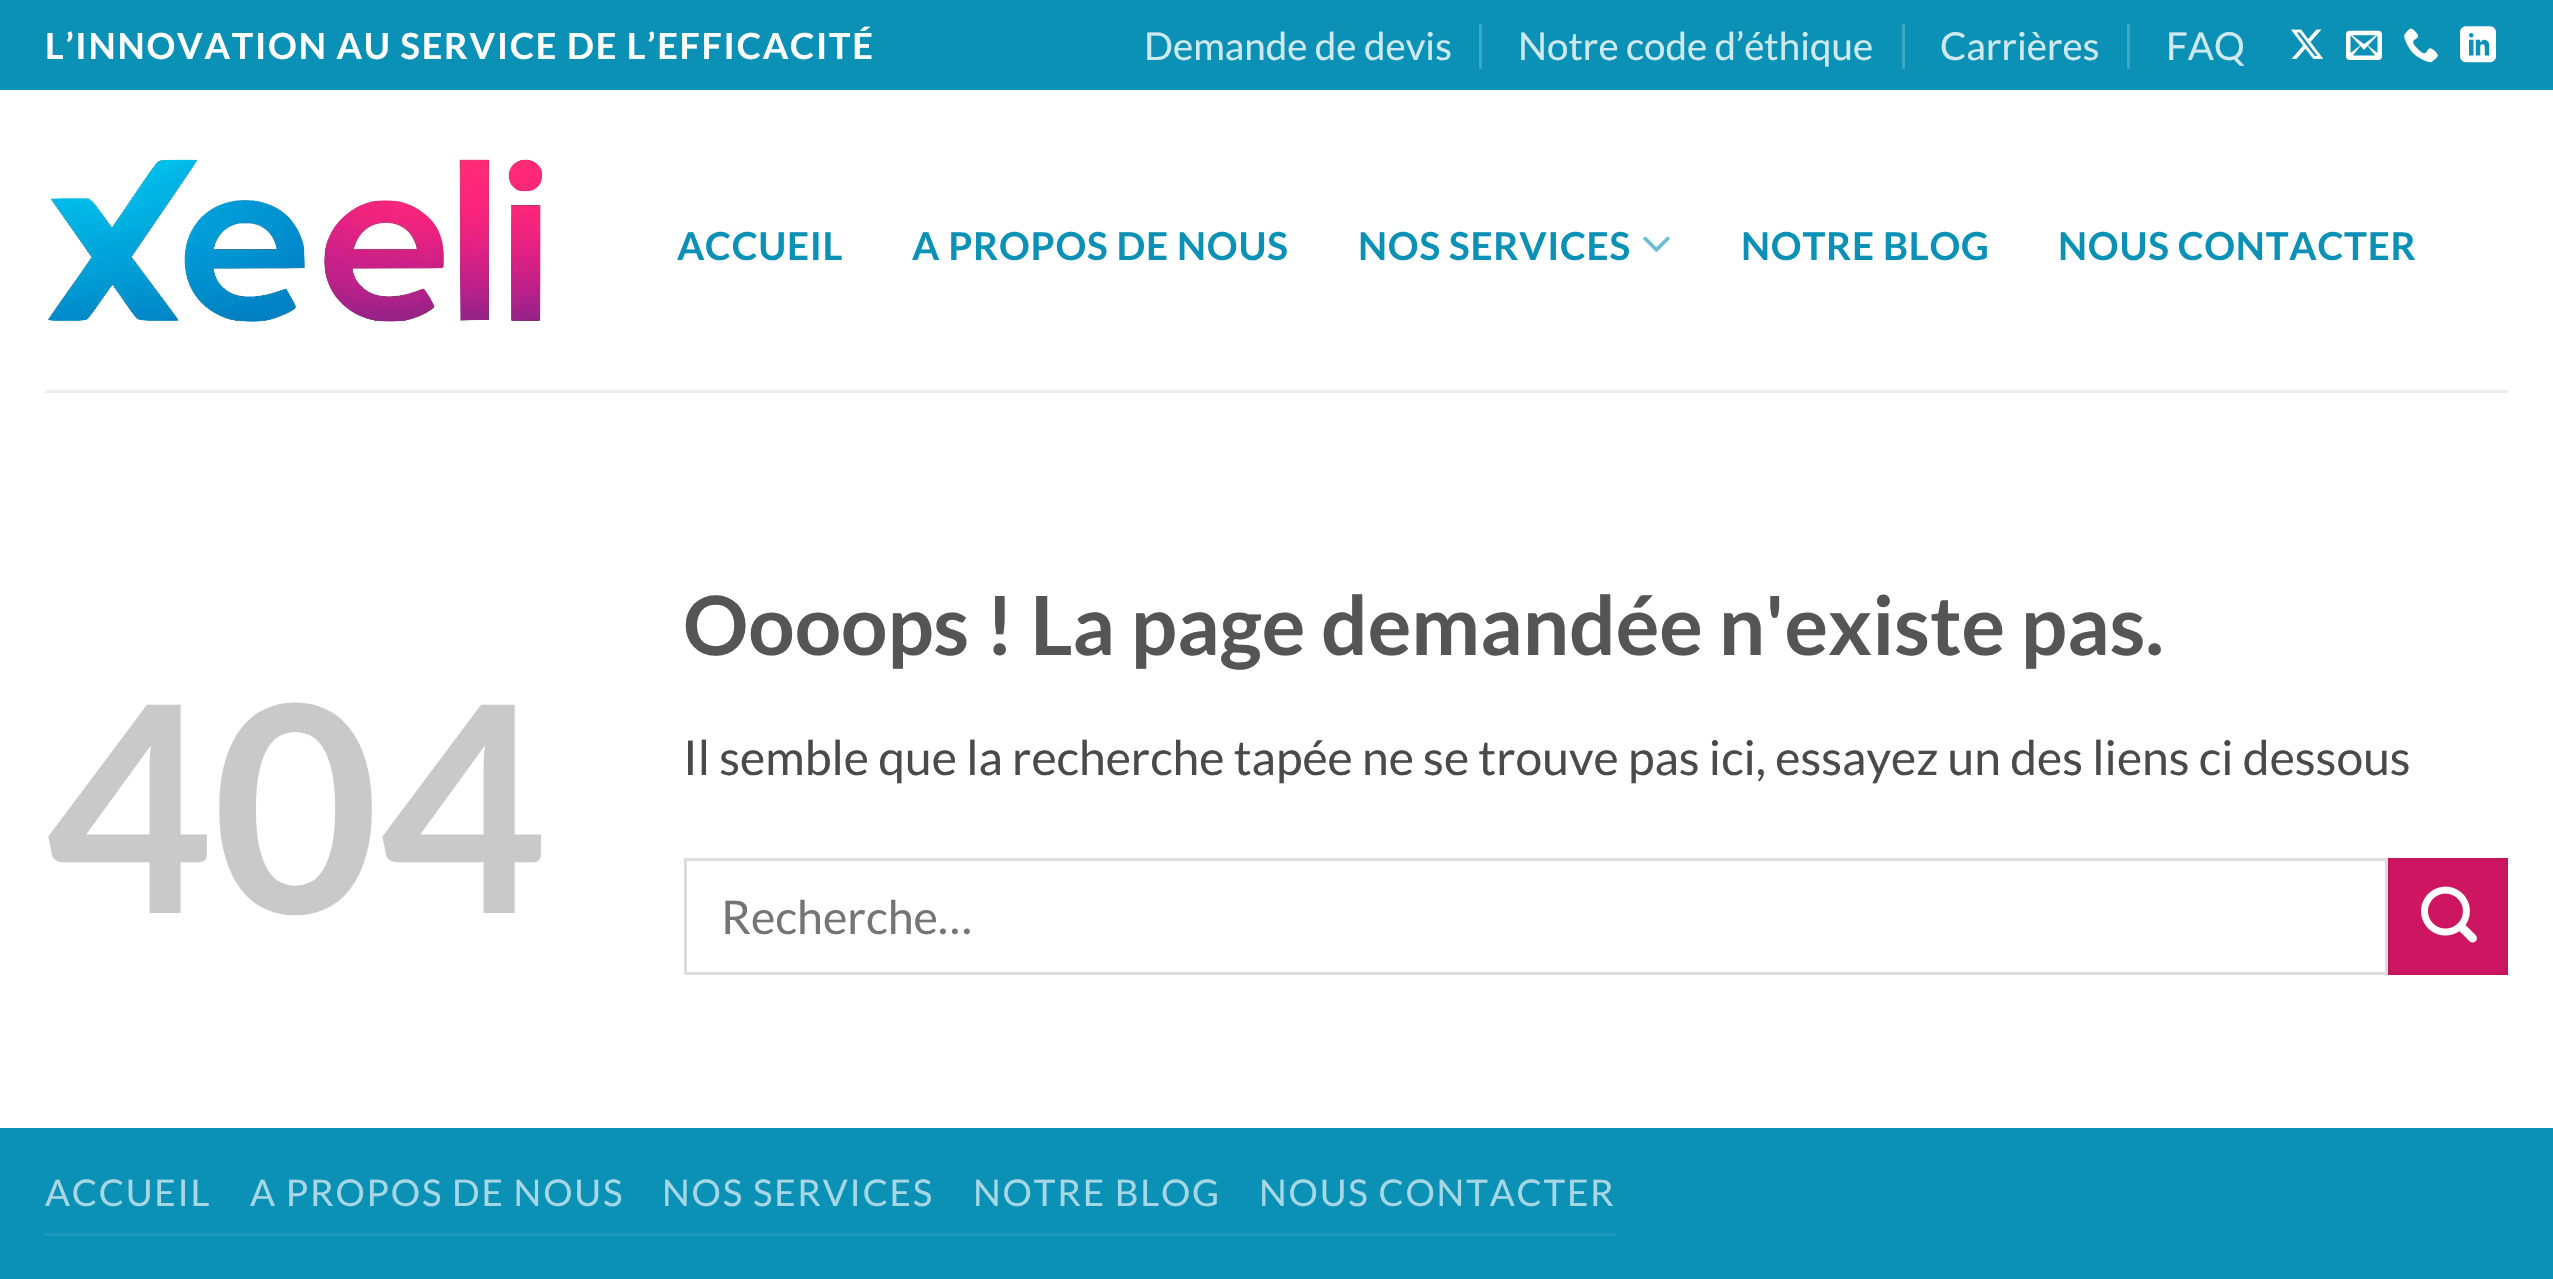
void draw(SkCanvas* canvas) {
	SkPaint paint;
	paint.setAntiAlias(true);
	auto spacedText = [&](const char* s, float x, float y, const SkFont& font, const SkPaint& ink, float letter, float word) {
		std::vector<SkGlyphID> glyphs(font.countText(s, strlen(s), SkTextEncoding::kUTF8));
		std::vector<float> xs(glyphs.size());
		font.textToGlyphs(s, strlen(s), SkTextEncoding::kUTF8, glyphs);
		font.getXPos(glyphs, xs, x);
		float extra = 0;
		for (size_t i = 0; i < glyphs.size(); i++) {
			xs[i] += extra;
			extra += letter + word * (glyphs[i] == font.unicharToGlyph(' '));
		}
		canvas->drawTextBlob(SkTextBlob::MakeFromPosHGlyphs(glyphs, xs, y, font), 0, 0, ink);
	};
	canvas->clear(0xffffffff);
	paint.setColor(0xff0b91b5);
	canvas->drawRect(SkRect::MakeXYWH(0, 0, 2553, 90), paint);
	SkFont f1(fontMgr->matchFamilyStyle("Lato", SkFontStyle::Bold()), 36);
	f1.setSubpixel(true);
	paint.setColor(0xffffffff);
	spacedText("L’INNOVATION AU SERVICE DE L’EFFICACITÉ", 45, 59, f1, paint, 1.8, 0);
	SkFont f2(fontMgr->matchFamilyStyle("Lato", SkFontStyle::Normal()), 38.5);
	f2.setSubpixel(true);
	paint.setColor(0xffcee9f0);
	canvas->drawString("Demande de devis", 1144, 60, f2, paint);
	paint.setColor(0xff3ca7c4);
	canvas->drawRect(SkRect::MakeXYWH(1479, 24, 3, 45), paint);
	paint.setColor(0xffcee9f0);
	canvas->drawString("Notre code d’éthique", 1518, 60, f2, paint);
	paint.setColor(0xff3ca7c4);
	canvas->drawRect(SkRect::MakeXYWH(1902, 24, 3, 45), paint);
	paint.setColor(0xffcee9f0);
	canvas->drawString("Carrières", 1940, 60, f2, paint);
	paint.setColor(0xff3ca7c4);
	canvas->drawRect(SkRect::MakeXYWH(2127, 24, 3, 45), paint);
	paint.setColor(0xffcee9f0);
	canvas->drawString("FAQ", 2166, 60, f2, paint);
	canvas->drawImageRect(SkImages::DeferredFromEncodedData(SkData::MakeFromFileName("img1.png")), SkRect::MakeXYWH(2291, 29, 33, 30), SkSamplingOptions());
	canvas->drawImageRect(SkImages::DeferredFromEncodedData(SkData::MakeFromFileName("img2.png")), SkRect::MakeXYWH(2346, 30, 36, 30), SkSamplingOptions());
	canvas->drawImageRect(SkImages::DeferredFromEncodedData(SkData::MakeFromFileName("img3.png")), SkRect::MakeXYWH(2404, 28, 34, 35), SkSamplingOptions());
	canvas->drawImageRect(SkImages::DeferredFromEncodedData(SkData::MakeFromFileName("img4.png")), SkRect::MakeXYWH(2460, 26, 36, 37), SkSamplingOptions());
	canvas->drawImageRect(SkImages::DeferredFromEncodedData(SkData::MakeFromFileName("img5.png")), SkRect::MakeXYWH(48, 159, 495, 163), SkSamplingOptions());
	SkFont f3(fontMgr->matchFamilyStyle("Lato", SkFontStyle::Bold()), 38.5);
	f3.setSubpixel(true);
	paint.setColor(0xff0b91b5);
	spacedText("ACCUEIL", 677, 260, f3, paint, 0.75, 0);
	spacedText("A PROPOS DE NOUS", 912, 260, f3, paint, 0.75, 0);
	spacedText("NOS SERVICES", 1358, 260, f3, paint, 0.75, 0);
	canvas->drawImageRect(SkImages::DeferredFromEncodedData(SkData::MakeFromFileName("img6.png")), SkRect::MakeXYWH(1643, 236, 27, 16), SkSamplingOptions());
	spacedText("NOTRE BLOG", 1741, 260, f3, paint, 0.75, 0);
	spacedText("NOUS CONTACTER", 2058, 260, f3, paint, 0.75, 0);
	paint.setColor(0xffededed);
	canvas->drawRect(SkRect::MakeXYWH(45, 390, 2463, 3), paint);
	SkFont f4(fontMgr->matchFamilyStyle("Lato", SkFontStyle::Bold()), 288);
	f4.setSubpixel(true);
	paint.setColor(0xffc9c9c9);
	canvas->drawString("404", 45, 913, f4, paint);
	SkFont f5(fontMgr->matchFamilyStyle("Lato", SkFontStyle::Bold()), 81.6);
	f5.setSubpixel(true);
	paint.setColor(0xff555555);
	canvas->drawString("Oooops ! La page demandée n'existe pas.", 683, 655, f5, paint);
	SkFont f6(fontMgr->matchFamilyStyle("Lato", SkFontStyle::Normal()), 48);
	f6.setSubpixel(true);
	paint.setColor(0xff4a4a4a);
	canvas->drawString("Il semble que la recherche tapée ne se trouve pas ici, essayez un des liens ci dessous", 683, 775, f6, paint);
	paint.setStroke(true);
	paint.setStrokeWidth(3);
	paint.setColor(0xffdddddd);
	canvas->drawRect(SkRect::MakeXYWH(685.5, 859.5, 1701, 114), paint);
	SkFont f7(fontMgr->matchFamilyStyle("Lato", SkFontStyle::Normal()), 46.5);
	f7.setSubpixel(true);
	paint.setStroke(false);
	paint.setColor(0xff757575);
	canvas->drawString("Recherche…", 721, 934, f7, paint);
	paint.setColor(0xffcd1561);
	canvas->drawRect(SkRect::MakeXYWH(2389.5, 859.5, 117, 114), paint);
	paint.setStroke(true);
	paint.setColor(0xffc3145c);
	canvas->drawRect(SkRect::MakeXYWH(2389.5, 859.5, 117, 114), paint);
	canvas->drawImageRect(SkImages::DeferredFromEncodedData(SkData::MakeFromFileName("img7.png")), SkRect::MakeXYWH(2421, 886, 56, 57), SkSamplingOptions());
	paint.setStroke(false);
	paint.setColor(0xff0b91b5);
	canvas->drawRect(SkRect::MakeXYWH(0, 1128, 2553, 151), paint);
	paint.setColor(0xff1b98ba);
	canvas->drawRect(SkRect::MakeXYWH(45, 1233, 1572, 3), paint);
	SkFont f8(fontMgr->matchFamilyStyle("Lato", SkFontStyle::Normal()), 36.75);
	f8.setSubpixel(true);
	paint.setColor(0xffa7d7e4);
	spacedText("ACCUEIL", 45, 1206, f8, paint, 1.8, 0);
	spacedText("A PROPOS DE NOUS", 250, 1206, f8, paint, 1.8, 0);
	spacedText("NOS SERVICES", 662, 1206, f8, paint, 1.8, 0);
	spacedText("NOTRE BLOG", 973, 1206, f8, paint, 1.8, 0);
	spacedText("NOUS CONTACTER", 1259, 1206, f8, paint, 1.8, 0);
}
